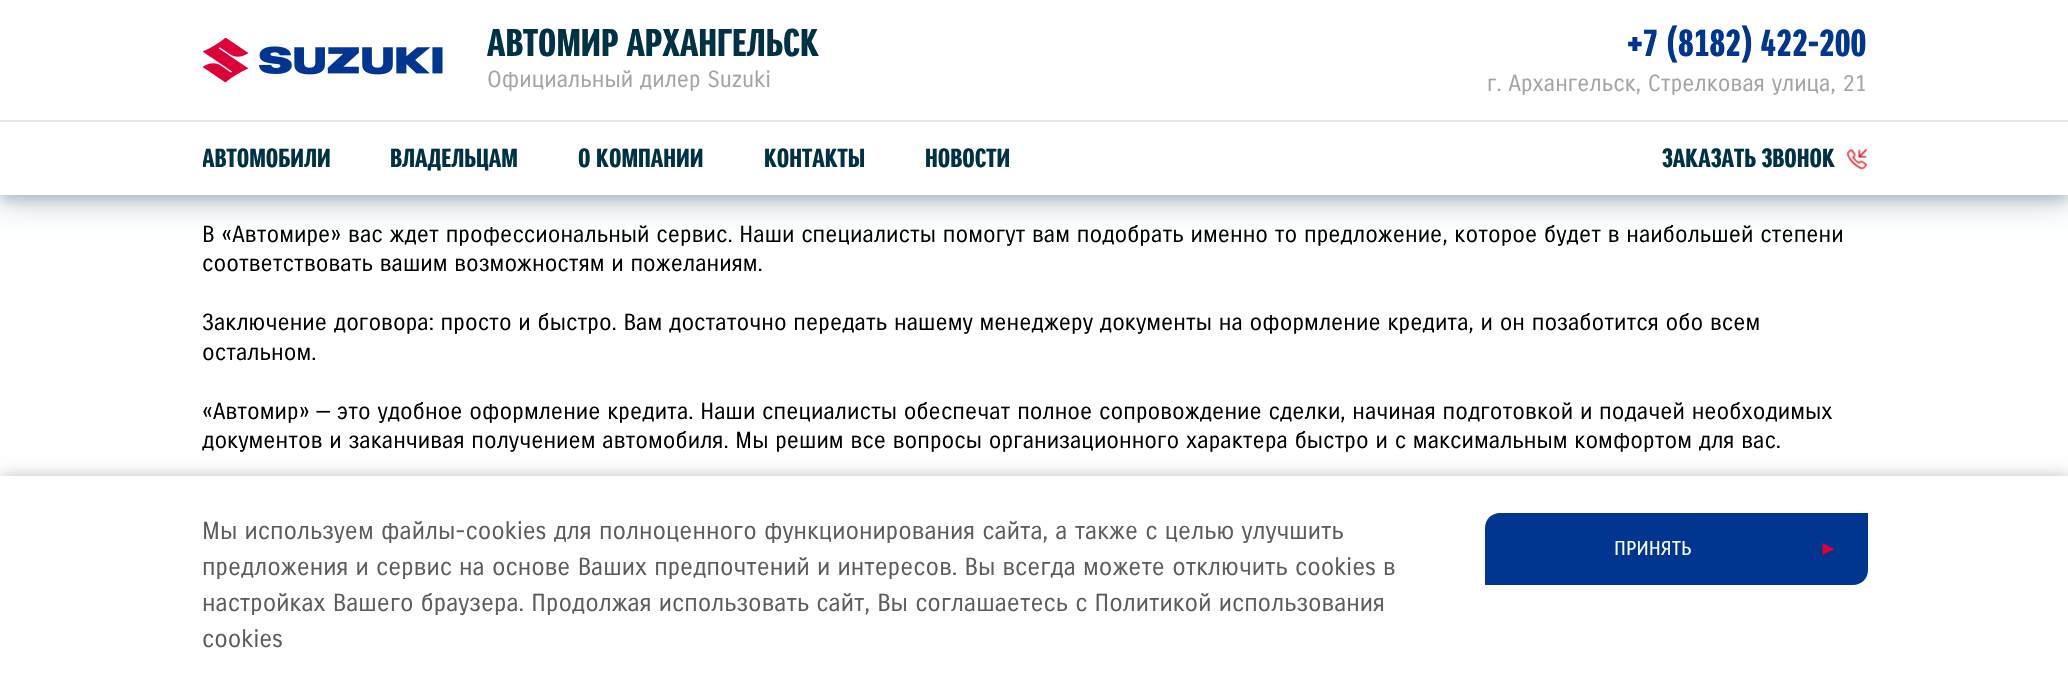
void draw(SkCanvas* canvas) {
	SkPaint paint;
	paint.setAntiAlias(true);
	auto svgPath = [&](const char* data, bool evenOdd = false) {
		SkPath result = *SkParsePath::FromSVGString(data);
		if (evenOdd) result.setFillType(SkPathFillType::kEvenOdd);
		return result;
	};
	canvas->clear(0xffffffff);
	paint.setColor(0x30003145);
	paint.setMaskFilter(SkMaskFilter::MakeBlur(kNormal_SkBlurStyle, 15));
	canvas->drawRect(SkRect::MakeXYWH(0, 9, 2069, 195), paint);
	paint.setMaskFilter(nullptr);
	paint.setColor(0x33003145);
	paint.setMaskFilter(SkMaskFilter::MakeBlur(kNormal_SkBlurStyle, 6));
	canvas->drawRect(SkRect::MakeXYWH(0, 6, 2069, 195), paint);
	paint.setMaskFilter(nullptr);
	paint.setColor(0xffffffff);
	canvas->drawRect(SkRect::MakeXYWH(0, 0, 2068, 195), paint);
	canvas->drawImageRect(SkImages::DeferredFromEncodedData(SkData::MakeFromFileName("img1.png")), SkRect::MakeXYWH(203, 38, 240, 45), SkSamplingOptions());
	SkFont f1(fontMgr->matchFamilyStyle("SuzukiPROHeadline", SkFontStyle::Bold()), 37.5);
	f1.setSubpixel(true);
	paint.setColor(0xff003145);
	canvas->drawString("АВТОМИР АРХАНГЕЛЬСК", 487, 56, f1, paint);
	SkFont f2(fontMgr->matchFamilyStyle("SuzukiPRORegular", SkFontStyle::Normal()), 22.5);
	f2.setSubpixel(true);
	paint.setColor(0xffa3a3a3);
	canvas->drawString("Официальный дилер Suzuki", 487, 87, f2, paint);
	paint.setColor(0xff00368f);
	canvas->drawString("+7 (8182) 422-200", 1627, 56, f1, paint);
	paint.setColor(0xffa3a3a3);
	canvas->drawString("г. Архангельск, Стрелковая улица, 21", 1487, 91, f2, paint);
	paint.setColor(0xffe0e6e9);
	canvas->drawRect(SkRect::MakeXYWH(0, 120, 2068, 2), paint);
	canvas->save();
	canvas->clipRect(SkRect::MakeXYWH(203, 122, 1665, 73));
	SkFont f3(fontMgr->matchFamilyStyle("SuzukiPROHeadline", SkFontStyle::Bold()), 25.5);
	f3.setSubpixel(true);
	paint.setColor(0xff003145);
	canvas->drawString("АВТОМОБИЛИ", 202, 167, f3, paint);
	canvas->restore();
	canvas->drawString("ВЛАДЕЛЬЦАМ", 390, 167, f3, paint);
	canvas->drawString("О КОМПАНИИ", 578, 167, f3, paint);
	canvas->drawString("КОНТАКТЫ", 764, 167, f3, paint);
	canvas->drawString("НОВОСТИ", 925, 167, f3, paint);
	canvas->drawString("ЗАКАЗАТЬ ЗВОНОК", 1662, 167, f3, paint);
	canvas->drawImageRect(SkImages::DeferredFromEncodedData(SkData::MakeFromFileName("img2.png")), SkRect::MakeXYWH(1846, 148, 22, 22), SkSamplingOptions());
	paint.setColor(0xff000000);
	canvas->drawString("В «Автомире» вас ждет профессиональный сервис. Наши специалисты помогут вам подобрать именно то предложение, которое будет в наибольшей степени", 202, 242, f2, paint);
	canvas->drawString("соответствовать вашим возможностям и пожеланиям.", 202, 271, f2, paint);
	canvas->drawString("Заключение договора: просто и быстро. Вам достаточно передать нашему менеджеру документы на оформление кредита, и он позаботится обо всем", 202, 330, f2, paint);
	canvas->drawString("остальном.", 202, 360, f2, paint);
	canvas->drawString("«Автомир» — это удобное оформление кредита. Наши специалисты обеспечат полное сопровождение сделки, начиная подготовкой и подачей необходимых", 202, 419, f2, paint);
	canvas->drawString("документов и заканчивая получением автомобиля. Мы решим все вопросы организационного характера быстро и с максимальным комфортом для вас.", 202, 448, f2, paint);
	paint.setColor(0x40000000);
	paint.setMaskFilter(SkMaskFilter::MakeBlur(kNormal_SkBlurStyle, 7.5));
	canvas->drawRect(SkRect::MakeXYWH(0, 476, 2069, 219), paint);
	paint.setMaskFilter(nullptr);
	paint.setColor(0xffffffff);
	canvas->drawRect(SkRect::MakeXYWH(0, 476, 2068, 218), paint);
	SkFont f4(fontMgr->matchFamilyStyle("SuzukiPRORegular", SkFontStyle::Normal()), 24);
	f4.setSubpixel(true);
	paint.setColor(0xff5b5c5d);
	canvas->drawString("Мы используем файлы-cookies для полноценного функционирования сайта, а также с целью улучшить", 202, 539, f4, paint);
	canvas->drawString("предложения и сервис на основе Ваших предпочтений и интересов. Вы всегда можете отключить cookies в", 202, 575, f4, paint);
	canvas->drawString("настройках Вашего браузера. Продолжая использовать сайт, Вы соглашаетесь с Политикой использования", 202, 611, f4, paint);
	canvas->drawString("cookies", 202, 647, f4, paint);
	paint.setColor(0xff00368f);
	canvas->drawPath(svgPath("M1500 513H1868V570C1868 578.5 1861.5 585 1853 585H1485V528C1485 519.5 1491.5 513 1500 513Z"), paint);
	SkFont f5(fontMgr->matchFamilyStyle("SuzukiPRORegular", SkFontStyle::Normal()), 19.5);
	f5.setSubpixel(true);
	paint.setColor(0xffffffff);
	canvas->drawString("ПРИНЯТЬ", 1614, 555, f5, paint);
	paint.setColor(0xffde0039);
	canvas->drawPath(svgPath("M1822.5 555V543L1834.5 549Z"), paint);
}
